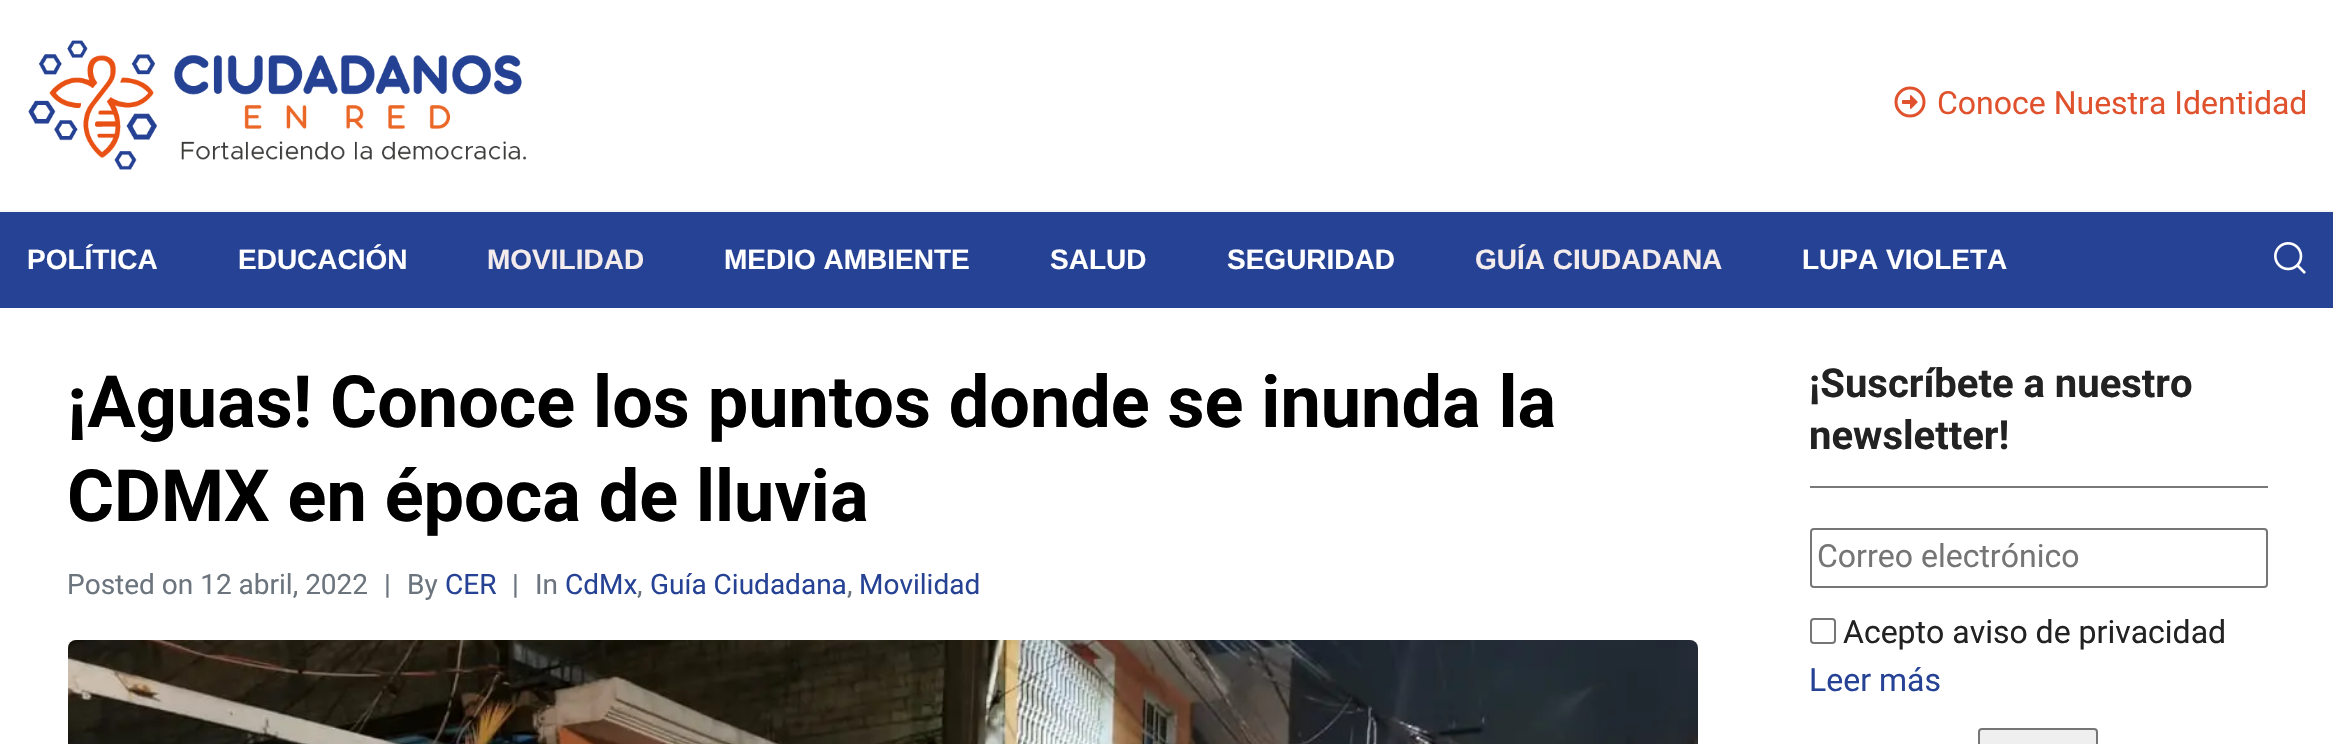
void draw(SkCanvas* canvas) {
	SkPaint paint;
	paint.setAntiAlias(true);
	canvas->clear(0xffffffff);
	paint.setColor(0xfff5f6f7);
	canvas->drawRect(SkRect::MakeXYWH(0, 210, 2333, 2), paint);
	canvas->drawImageRect(SkImages::DeferredFromEncodedData(SkData::MakeFromFileName("img1.png")), SkRect::MakeXYWH(28, 40, 498, 130), SkSamplingOptions());
	canvas->drawImageRect(SkImages::DeferredFromEncodedData(SkData::MakeFromFileName("img2.png")), SkRect::MakeXYWH(1894, 86, 32, 32), SkSamplingOptions());
	SkFont f1(fontMgr->matchFamilyStyle("Roboto", SkFontStyle::Normal()), 32);
	f1.setSubpixel(true);
	paint.setColor(0xffe0522d);
	canvas->drawString("Conoce Nuestra Identidad", 1937, 114, f1, paint);
	paint.setColor(0xff264294);
	canvas->drawRect(SkRect::MakeXYWH(0, 212, 2333, 96), paint);
	SkFont f2(fontMgr->matchFamilyStyle("Liberation Sans", SkFontStyle::Bold()), 28);
	f2.setSubpixel(true);
	paint.setColor(0xffffffff);
	canvas->drawString("POLÍTICA", 27, 269, f2, paint);
	canvas->drawString("EDUCACIÓN", 238, 269, f2, paint);
	paint.setColor(0xfff4ecec);
	canvas->drawString("MOVILIDAD", 487, 269, f2, paint);
	paint.setColor(0xffffffff);
	canvas->drawString("MEDIO AMBIENTE", 724, 269, f2, paint);
	canvas->drawString("SALUD", 1050, 269, f2, paint);
	canvas->drawString("SEGURIDAD", 1227, 269, f2, paint);
	paint.setColor(0xfff4ecec);
	canvas->drawString("GUÍA CIUDADANA", 1475, 269, f2, paint);
	paint.setColor(0xffffffff);
	canvas->drawString("LUPA VIOLETA", 1802, 269, f2, paint);
	canvas->drawImageRect(SkImages::DeferredFromEncodedData(SkData::MakeFromFileName("img3.png")), SkRect::MakeXYWH(2274, 242, 32, 32), SkSamplingOptions());
	SkFont f3(fontMgr->matchFamilyStyle("Roboto", SkFontStyle::Bold()), 72);
	f3.setSubpixel(true);
	paint.setColor(0xff000000);
	canvas->drawString("¡Aguas! Conoce los puntos donde se inunda la", 67, 427, f3, paint);
	canvas->drawString("CDMX en época de lluvia", 67, 521, f3, paint);
	SkFont f4(fontMgr->matchFamilyStyle("Roboto", SkFontStyle::Normal()), 28);
	f4.setSubpixel(true);
	paint.setColor(0xff6c757d);
	canvas->drawString("Posted on 12 abril, 2022", 67, 594, f4, paint);
	canvas->drawString("|", 384, 594, f4, paint);
	canvas->drawString("By", 407, 594, f4, paint);
	paint.setColor(0xff264294);
	canvas->drawString("CER", 445, 594, f4, paint);
	paint.setColor(0xff6c757d);
	canvas->drawString("|", 512, 594, f4, paint);
	canvas->drawString("In", 535, 594, f4, paint);
	paint.setColor(0xff264294);
	canvas->drawString("CdMx", 565, 594, f4, paint);
	paint.setColor(0xff6c757d);
	canvas->drawString(",", 637, 594, f4, paint);
	paint.setColor(0xff264294);
	canvas->drawString("Guía Ciudadana", 650, 594, f4, paint);
	paint.setColor(0xff6c757d);
	canvas->drawString(",", 847, 594, f4, paint);
	paint.setColor(0xff264294);
	canvas->drawString("Movilidad", 859, 594, f4, paint);
	canvas->drawImageRect(SkImages::DeferredFromEncodedData(SkData::MakeFromFileName("img4.png")), SkRect::MakeXYWH(68, 640, 1630, 104), SkSamplingOptions());
	SkFont f5(fontMgr->matchFamilyStyle("Roboto", SkFontStyle::Bold()), 40);
	f5.setSubpixel(true);
	paint.setColor(0xff222222);
	canvas->drawString("¡Suscríbete a nuestro", 1809, 397, f5, paint);
	canvas->drawString("newsletter!", 1809, 449, f5, paint);
	paint.setColor(0xff797979);
	canvas->drawRect(SkRect::MakeXYWH(1810, 486, 458, 2), paint);
	paint.setStroke(true);
	paint.setStrokeWidth(2);
	paint.setColor(0xff767676);
	canvas->drawRoundRect(SkRect::MakeXYWH(1811, 529, 456, 58), 3, 3, paint);
	paint.setStroke(false);
	paint.setColor(0xff757575);
	canvas->drawString("Correo electrónico", 1817, 567, f1, paint);
	paint.setStroke(true);
	paint.setColor(0xff767676);
	canvas->drawRoundRect(SkRect::MakeXYWH(1811, 619, 24, 24), 3, 3, paint);
	paint.setStroke(false);
	paint.setColor(0xff222222);
	canvas->drawString("Acepto aviso de privacidad", 1843, 643, f1, paint);
	paint.setColor(0xff264294);
	canvas->drawString("Leer más", 1809, 691, f1, paint);
	paint.setColor(0xffefefef);
	canvas->drawRoundRect(SkRect::MakeXYWH(1979, 729, 118, 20), 3, 3, paint);
	paint.setStroke(true);
	paint.setColor(0xff767676);
	canvas->drawRoundRect(SkRect::MakeXYWH(1979, 729, 118, 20), 3, 3, paint);
}
